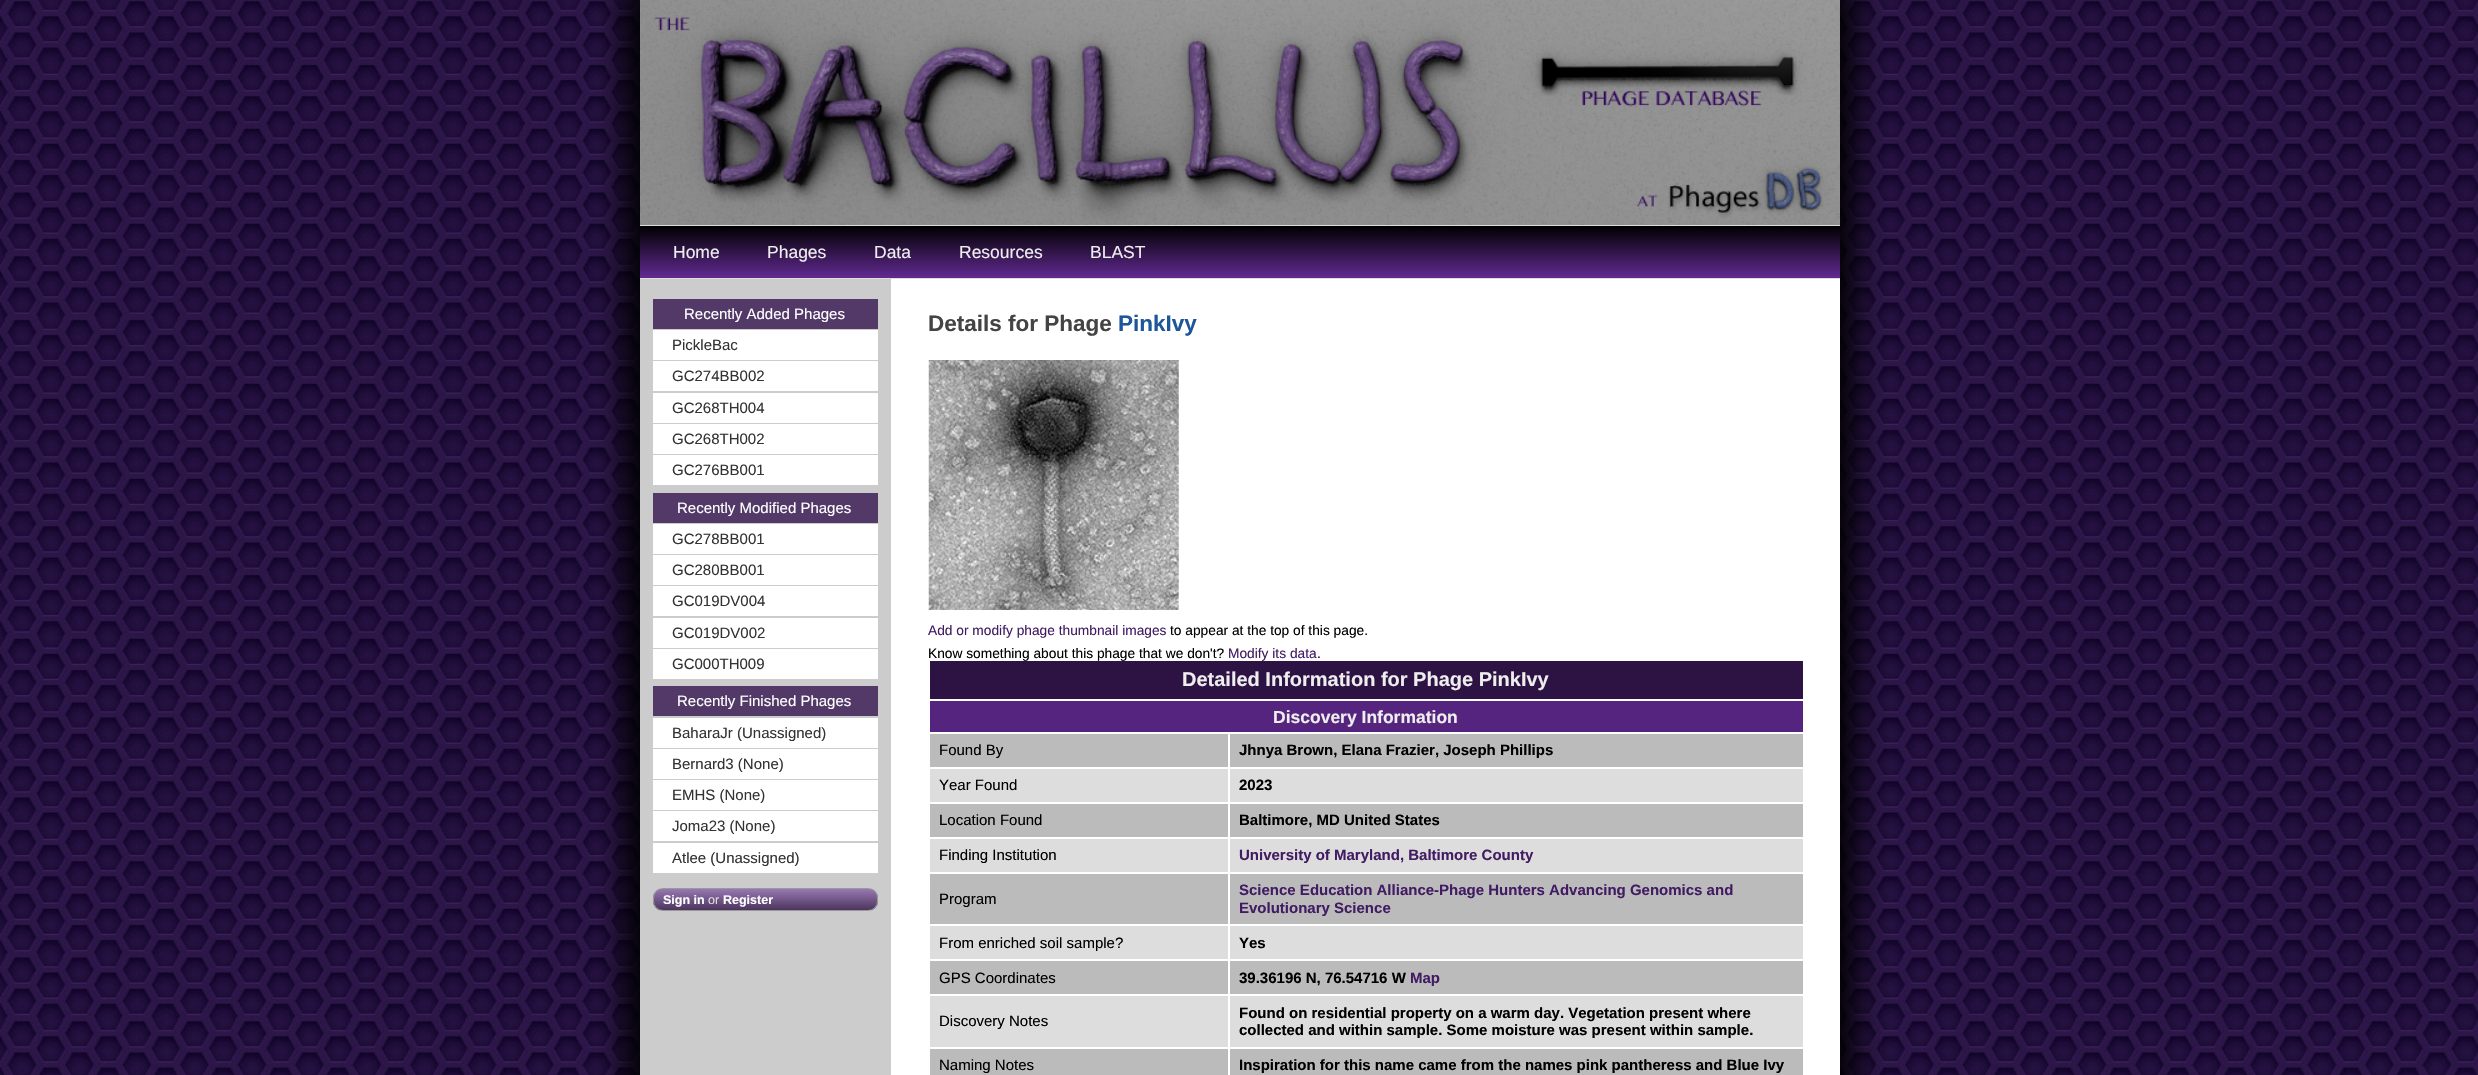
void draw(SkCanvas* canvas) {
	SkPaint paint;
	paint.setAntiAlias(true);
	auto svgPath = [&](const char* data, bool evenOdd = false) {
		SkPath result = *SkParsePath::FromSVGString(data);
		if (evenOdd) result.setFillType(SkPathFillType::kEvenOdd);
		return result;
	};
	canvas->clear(0xffffffff);
	canvas->drawImageRect(SkImages::DeferredFromEncodedData(SkData::MakeFromFileName("img1.png")), SkRect::MakeXYWH(0, 0, 2478, 1075), SkSamplingOptions());
	paint.setColor(0xff000000);
	paint.setMaskFilter(SkMaskFilter::MakeBlur(kNormal_SkBlurStyle, 15));
	canvas->drawRect(SkRect::MakeXYWH(625, -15, 1230, 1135), paint);
	paint.setMaskFilter(nullptr);
	paint.setColor(0xffffffff);
	canvas->drawRect(SkRect::MakeXYWH(891, 279, 949, 796), paint);
	canvas->drawImageRect(SkImages::DeferredFromEncodedData(SkData::MakeFromFileName("img2.png")), SkRect::MakeXYWH(640, 0, 1200, 225), SkSamplingOptions());
	{
		const SkColor colors[] = {0xff000000, 0xff622a92};
		const float stops[] = {0, 1};
		const SkPoint ends[] = {{640, 226}, {640, 278}};
		paint.setShader(SkGradientShader::MakeLinear(ends, colors, stops, 2, SkTileMode::kClamp));
		paint.setAlpha(255);
	}
	canvas->drawRect(SkRect::MakeXYWH(640, 226, 1200, 52), paint);
	paint.setShader(nullptr);
	paint.setColor(0xffdddddd);
	canvas->drawRect(SkRect::MakeXYWH(640, 225, 1200, 1), paint);
	canvas->drawRect(SkRect::MakeXYWH(640, 278, 1200, 1), paint);
	SkFont f1(fontMgr->matchFamilyStyle("Liberation Sans", SkFontStyle::Normal()), 17.5);
	f1.setSubpixel(true);
	paint.setColor(0xffeeeeee);
	canvas->drawString("Home", 673, 258, f1, paint);
	canvas->drawString("Phages", 767, 258, f1, paint);
	canvas->drawString("Data", 874, 258, f1, paint);
	canvas->drawString("Resources", 959, 258, f1, paint);
	canvas->drawString("BLAST", 1090, 258, f1, paint);
	paint.setColor(0xffcccccc);
	canvas->drawRect(SkRect::MakeXYWH(640, 279, 251, 796), paint);
	paint.setColor(0xff533967);
	canvas->drawRect(SkRect::MakeXYWH(653, 299, 225, 30), paint);
	SkFont f2(fontMgr->matchFamilyStyle("Liberation Sans", SkFontStyle::Normal()), 15);
	f2.setSubpixel(true);
	paint.setColor(0xffffffff);
	canvas->drawString("Recently Added Phages", 684, 319, f2, paint);
	canvas->drawRect(SkRect::MakeXYWH(653, 330, 225, 30), paint);
	paint.setColor(0xff333333);
	canvas->drawString("PickleBac", 672, 350, f2, paint);
	paint.setColor(0xffffffff);
	canvas->drawRect(SkRect::MakeXYWH(653, 361, 225, 30), paint);
	paint.setColor(0xff333333);
	canvas->drawString("GC274BB002", 672, 381, f2, paint);
	paint.setColor(0xffffffff);
	canvas->drawRect(SkRect::MakeXYWH(653, 393, 225, 30), paint);
	paint.setColor(0xff333333);
	canvas->drawString("GC268TH004", 672, 413, f2, paint);
	paint.setColor(0xffffffff);
	canvas->drawRect(SkRect::MakeXYWH(653, 424, 225, 30), paint);
	paint.setColor(0xff333333);
	canvas->drawString("GC268TH002", 672, 444, f2, paint);
	paint.setColor(0xffffffff);
	canvas->drawRect(SkRect::MakeXYWH(653, 455, 225, 30), paint);
	paint.setColor(0xff333333);
	canvas->drawString("GC276BB001", 672, 475, f2, paint);
	paint.setColor(0xff533967);
	canvas->drawRect(SkRect::MakeXYWH(653, 493, 225, 30), paint);
	paint.setColor(0xffffffff);
	canvas->drawString("Recently Modified Phages", 677, 513, f2, paint);
	canvas->drawRect(SkRect::MakeXYWH(653, 524, 225, 30), paint);
	paint.setColor(0xff333333);
	canvas->drawString("GC278BB001", 672, 544, f2, paint);
	paint.setColor(0xffffffff);
	canvas->drawRect(SkRect::MakeXYWH(653, 555, 225, 30), paint);
	paint.setColor(0xff333333);
	canvas->drawString("GC280BB001", 672, 575, f2, paint);
	paint.setColor(0xffffffff);
	canvas->drawRect(SkRect::MakeXYWH(653, 586, 225, 30), paint);
	paint.setColor(0xff333333);
	canvas->drawString("GC019DV004", 672, 606, f2, paint);
	paint.setColor(0xffffffff);
	canvas->drawRect(SkRect::MakeXYWH(653, 618, 225, 30), paint);
	paint.setColor(0xff333333);
	canvas->drawString("GC019DV002", 672, 638, f2, paint);
	paint.setColor(0xffffffff);
	canvas->drawRect(SkRect::MakeXYWH(653, 649, 225, 30), paint);
	paint.setColor(0xff333333);
	canvas->drawString("GC000TH009", 672, 669, f2, paint);
	paint.setColor(0xff533967);
	canvas->drawRect(SkRect::MakeXYWH(653, 686, 225, 30), paint);
	paint.setColor(0xffffffff);
	canvas->drawString("Recently Finished Phages", 677, 706, f2, paint);
	canvas->drawRect(SkRect::MakeXYWH(653, 718, 225, 30), paint);
	paint.setColor(0xff333333);
	canvas->drawString("BaharaJr (Unassigned)", 672, 738, f2, paint);
	paint.setColor(0xffffffff);
	canvas->drawRect(SkRect::MakeXYWH(653, 749, 225, 30), paint);
	paint.setColor(0xff333333);
	canvas->drawString("Bernard3 (None)", 672, 769, f2, paint);
	paint.setColor(0xffffffff);
	canvas->drawRect(SkRect::MakeXYWH(653, 780, 225, 30), paint);
	paint.setColor(0xff333333);
	canvas->drawString("EMHS (None)", 672, 800, f2, paint);
	paint.setColor(0xffffffff);
	canvas->drawRect(SkRect::MakeXYWH(653, 811, 225, 30), paint);
	paint.setColor(0xff333333);
	canvas->drawString("Joma23 (None)", 672, 831, f2, paint);
	paint.setColor(0xffffffff);
	canvas->drawRect(SkRect::MakeXYWH(653, 843, 225, 30), paint);
	paint.setColor(0xff333333);
	canvas->drawString("Atlee (Unassigned)", 672, 863, f2, paint);
	canvas->save();
	canvas->clipPath(svgPath("M663 888H868C873.5 888 878 892.5 878 898V901C878 906.5 873.5 911 868 911H663C657.5 911 653 906.5 653 901V898C653 892.5 657.5 888 663 888Z"), true);
	{
		const SkColor colors[] = {0xff9878b3, 0xff4b355d};
		const float stops[] = {0, 1};
		const SkPoint ends[] = {{654, 889}, {654, 910}};
		paint.setShader(SkGradientShader::MakeLinear(ends, colors, stops, 2, SkTileMode::kClamp));
		paint.setAlpha(255);
	}
	canvas->drawRect(SkRect::MakeXYWH(653, 889, 225, 21), paint);
	canvas->restore();
	paint.setStroke(true);
	paint.setStrokeWidth(1);
	paint.setShader(nullptr);
	paint.setColor(0xff999999);
	canvas->drawRoundRect(SkRect::MakeXYWH(653.5, 888.5, 224, 22), 9.5, 9.5, paint);
	SkFont f3(fontMgr->matchFamilyStyle("Liberation Sans", SkFontStyle::Bold()), 12.5);
	f3.setSubpixel(true);
	paint.setStroke(false);
	paint.setColor(0xffffffff);
	canvas->drawString("Sign in", 663, 904, f3, paint);
	SkFont f4(fontMgr->matchFamilyStyle("Liberation Sans", SkFontStyle::Normal()), 12.5);
	f4.setSubpixel(true);
	paint.setColor(0xffdddddd);
	canvas->drawString("or", 708, 904, f4, paint);
	paint.setColor(0xffffffff);
	canvas->drawString("Register", 723, 904, f3, paint);
	SkFont f5(fontMgr->matchFamilyStyle("Liberation Sans", SkFontStyle::Bold()), 22.5);
	f5.setSubpixel(true);
	paint.setColor(0xff444444);
	canvas->drawString("Details for Phage", 928, 331, f5, paint);
	paint.setColor(0xff1e5799);
	canvas->drawString("PinkIvy", 1118, 331, f5, paint);
	canvas->drawImageRect(SkImages::DeferredFromEncodedData(SkData::MakeFromFileName("img3.png")), SkRect::MakeXYWH(928, 360, 251, 250), SkSamplingOptions());
	SkFont f6(fontMgr->matchFamilyStyle("Liberation Sans", SkFontStyle::Normal()), 13.75);
	f6.setSubpixel(true);
	paint.setColor(0xff421c63);
	canvas->drawString("Add or modify phage thumbnail images", 928, 635, f6, paint);
	paint.setColor(0xff000000);
	canvas->drawString("to appear at the top of this page.", 1170, 635, f6, paint);
	canvas->drawString("Know something about this phage that we don't?", 928, 658, f6, paint);
	paint.setColor(0xff421c63);
	canvas->drawString("Modify its data", 1228, 658, f6, paint);
	paint.setColor(0xff000000);
	canvas->drawString(".", 1317, 658, f6, paint);
	paint.setColor(0xffdddddd);
	canvas->drawRect(SkRect::MakeXYWH(930, 769, 873, 278), paint);
	paint.setColor(0xff2d1343);
	canvas->drawRect(SkRect::MakeXYWH(930, 661, 873, 38), paint);
	SkFont f7(fontMgr->matchFamilyStyle("Liberation Sans", SkFontStyle::Bold()), 20);
	f7.setSubpixel(true);
	paint.setColor(0xffeeeeee);
	canvas->drawString("Detailed Information for Phage PinkIvy", 1182, 686, f7, paint);
	paint.setColor(0xff55247f);
	canvas->drawRect(SkRect::MakeXYWH(930, 701, 873, 31), paint);
	SkFont f8(fontMgr->matchFamilyStyle("Liberation Sans", SkFontStyle::Bold()), 17.5);
	f8.setSubpixel(true);
	paint.setColor(0xffeeeeee);
	canvas->drawString("Discovery Information", 1273, 723, f8, paint);
	paint.setColor(0xffbbbbbb);
	canvas->drawRect(SkRect::MakeXYWH(930, 734, 873, 33), paint);
	paint.setStroke(true);
	paint.setColor(0xffffffff);
	canvas->drawRect(SkRect::MakeXYWH(929.5, 733.5, 299, 34), paint);
	paint.setStroke(false);
	paint.setColor(0xff000000);
	canvas->drawString("Found By", 939, 755, f2, paint);
	paint.setStroke(true);
	paint.setColor(0xffffffff);
	canvas->drawRect(SkRect::MakeXYWH(1229.5, 733.5, 574, 34), paint);
	SkFont f9(fontMgr->matchFamilyStyle("Liberation Sans", SkFontStyle::Bold()), 15);
	f9.setSubpixel(true);
	paint.setStroke(false);
	paint.setColor(0xff000000);
	canvas->drawString("Jhnya Brown, Elana Frazier, Joseph Phillips", 1239, 755, f9, paint);
	paint.setStroke(true);
	paint.setColor(0xffffffff);
	canvas->drawRect(SkRect::MakeXYWH(929.5, 768.5, 299, 34), paint);
	paint.setStroke(false);
	paint.setColor(0xff000000);
	canvas->drawString("Year Found", 939, 790, f2, paint);
	paint.setStroke(true);
	paint.setColor(0xffffffff);
	canvas->drawRect(SkRect::MakeXYWH(1229.5, 768.5, 574, 34), paint);
	paint.setStroke(false);
	paint.setColor(0xff000000);
	canvas->drawString("2023", 1239, 790, f9, paint);
	paint.setColor(0xffbbbbbb);
	canvas->drawRect(SkRect::MakeXYWH(930, 804, 873, 33), paint);
	paint.setStroke(true);
	paint.setColor(0xffffffff);
	canvas->drawRect(SkRect::MakeXYWH(929.5, 803.5, 299, 34), paint);
	paint.setStroke(false);
	paint.setColor(0xff000000);
	canvas->drawString("Location Found", 939, 825, f2, paint);
	paint.setStroke(true);
	paint.setColor(0xffffffff);
	canvas->drawRect(SkRect::MakeXYWH(1229.5, 803.5, 574, 34), paint);
	paint.setStroke(false);
	paint.setColor(0xff000000);
	canvas->drawString("Baltimore, MD United States", 1239, 825, f9, paint);
	paint.setStroke(true);
	paint.setColor(0xffffffff);
	canvas->drawRect(SkRect::MakeXYWH(929.5, 838.5, 299, 34), paint);
	paint.setStroke(false);
	paint.setColor(0xff000000);
	canvas->drawString("Finding Institution", 939, 860, f2, paint);
	paint.setStroke(true);
	paint.setColor(0xffffffff);
	canvas->drawRect(SkRect::MakeXYWH(1229.5, 838.5, 574, 34), paint);
	paint.setStroke(false);
	paint.setColor(0xff421c63);
	canvas->drawString("University of Maryland, Baltimore County", 1239, 860, f9, paint);
	paint.setColor(0xffbbbbbb);
	canvas->drawRect(SkRect::MakeXYWH(930, 874, 873, 50), paint);
	paint.setStroke(true);
	paint.setColor(0xffffffff);
	canvas->drawRect(SkRect::MakeXYWH(929.5, 873.5, 299, 51), paint);
	paint.setStroke(false);
	paint.setColor(0xff000000);
	canvas->drawString("Program", 939, 904, f2, paint);
	paint.setStroke(true);
	paint.setColor(0xffffffff);
	canvas->drawRect(SkRect::MakeXYWH(1229.5, 873.5, 574, 51), paint);
	paint.setStroke(false);
	paint.setColor(0xff421c63);
	canvas->drawString("Science Education Alliance-Phage Hunters Advancing Genomics and", 1239, 895, f9, paint);
	canvas->drawString("Evolutionary Science", 1239, 913, f9, paint);
	paint.setStroke(true);
	paint.setColor(0xffffffff);
	canvas->drawRect(SkRect::MakeXYWH(929.5, 925.5, 299, 34), paint);
	paint.setStroke(false);
	paint.setColor(0xff000000);
	canvas->drawString("From enriched soil sample?", 939, 948, f2, paint);
	paint.setStroke(true);
	paint.setColor(0xffffffff);
	canvas->drawRect(SkRect::MakeXYWH(1229.5, 925.5, 574, 34), paint);
	paint.setStroke(false);
	paint.setColor(0xff000000);
	canvas->drawString("Yes", 1239, 948, f9, paint);
	paint.setColor(0xffbbbbbb);
	canvas->drawRect(SkRect::MakeXYWH(930, 961, 873, 33), paint);
	paint.setStroke(true);
	paint.setColor(0xffffffff);
	canvas->drawRect(SkRect::MakeXYWH(929.5, 960.5, 299, 34), paint);
	paint.setStroke(false);
	paint.setColor(0xff000000);
	canvas->drawString("GPS Coordinates", 939, 983, f2, paint);
	paint.setStroke(true);
	paint.setColor(0xffffffff);
	canvas->drawRect(SkRect::MakeXYWH(1229.5, 960.5, 574, 34), paint);
	paint.setStroke(false);
	paint.setColor(0xff000000);
	canvas->drawString("39.36196 N, 76.54716 W", 1239, 983, f9, paint);
	paint.setColor(0xff421c63);
	canvas->drawString("Map", 1410, 983, f9, paint);
	paint.setStroke(true);
	paint.setColor(0xffffffff);
	canvas->drawRect(SkRect::MakeXYWH(929.5, 995.5, 299, 52), paint);
	paint.setStroke(false);
	paint.setColor(0xff000000);
	canvas->drawString("Discovery Notes", 939, 1026, f2, paint);
	paint.setStroke(true);
	paint.setColor(0xffffffff);
	canvas->drawRect(SkRect::MakeXYWH(1229.5, 995.5, 574, 52), paint);
	paint.setStroke(false);
	paint.setColor(0xff000000);
	canvas->drawString("Found on residential property on a warm day. Vegetation present where", 1239, 1018, f9, paint);
	canvas->drawString("collected and within sample. Some moisture was present within sample.", 1239, 1035, f9, paint);
	paint.setColor(0xffbbbbbb);
	canvas->drawRect(SkRect::MakeXYWH(930, 1049, 873, 26), paint);
	paint.setStroke(true);
	paint.setColor(0xffffffff);
	canvas->drawRect(SkRect::MakeXYWH(929.5, 1048.5, 299, 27), paint);
	paint.setStroke(false);
	paint.setColor(0xff000000);
	canvas->drawString("Naming Notes", 939, 1070, f2, paint);
	paint.setStroke(true);
	paint.setColor(0xffffffff);
	canvas->drawRect(SkRect::MakeXYWH(1229.5, 1048.5, 574, 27), paint);
	paint.setStroke(false);
	paint.setColor(0xff000000);
	canvas->drawString("Inspiration for this name came from the names pink pantheress and Blue Ivy", 1239, 1070, f9, paint);
}
